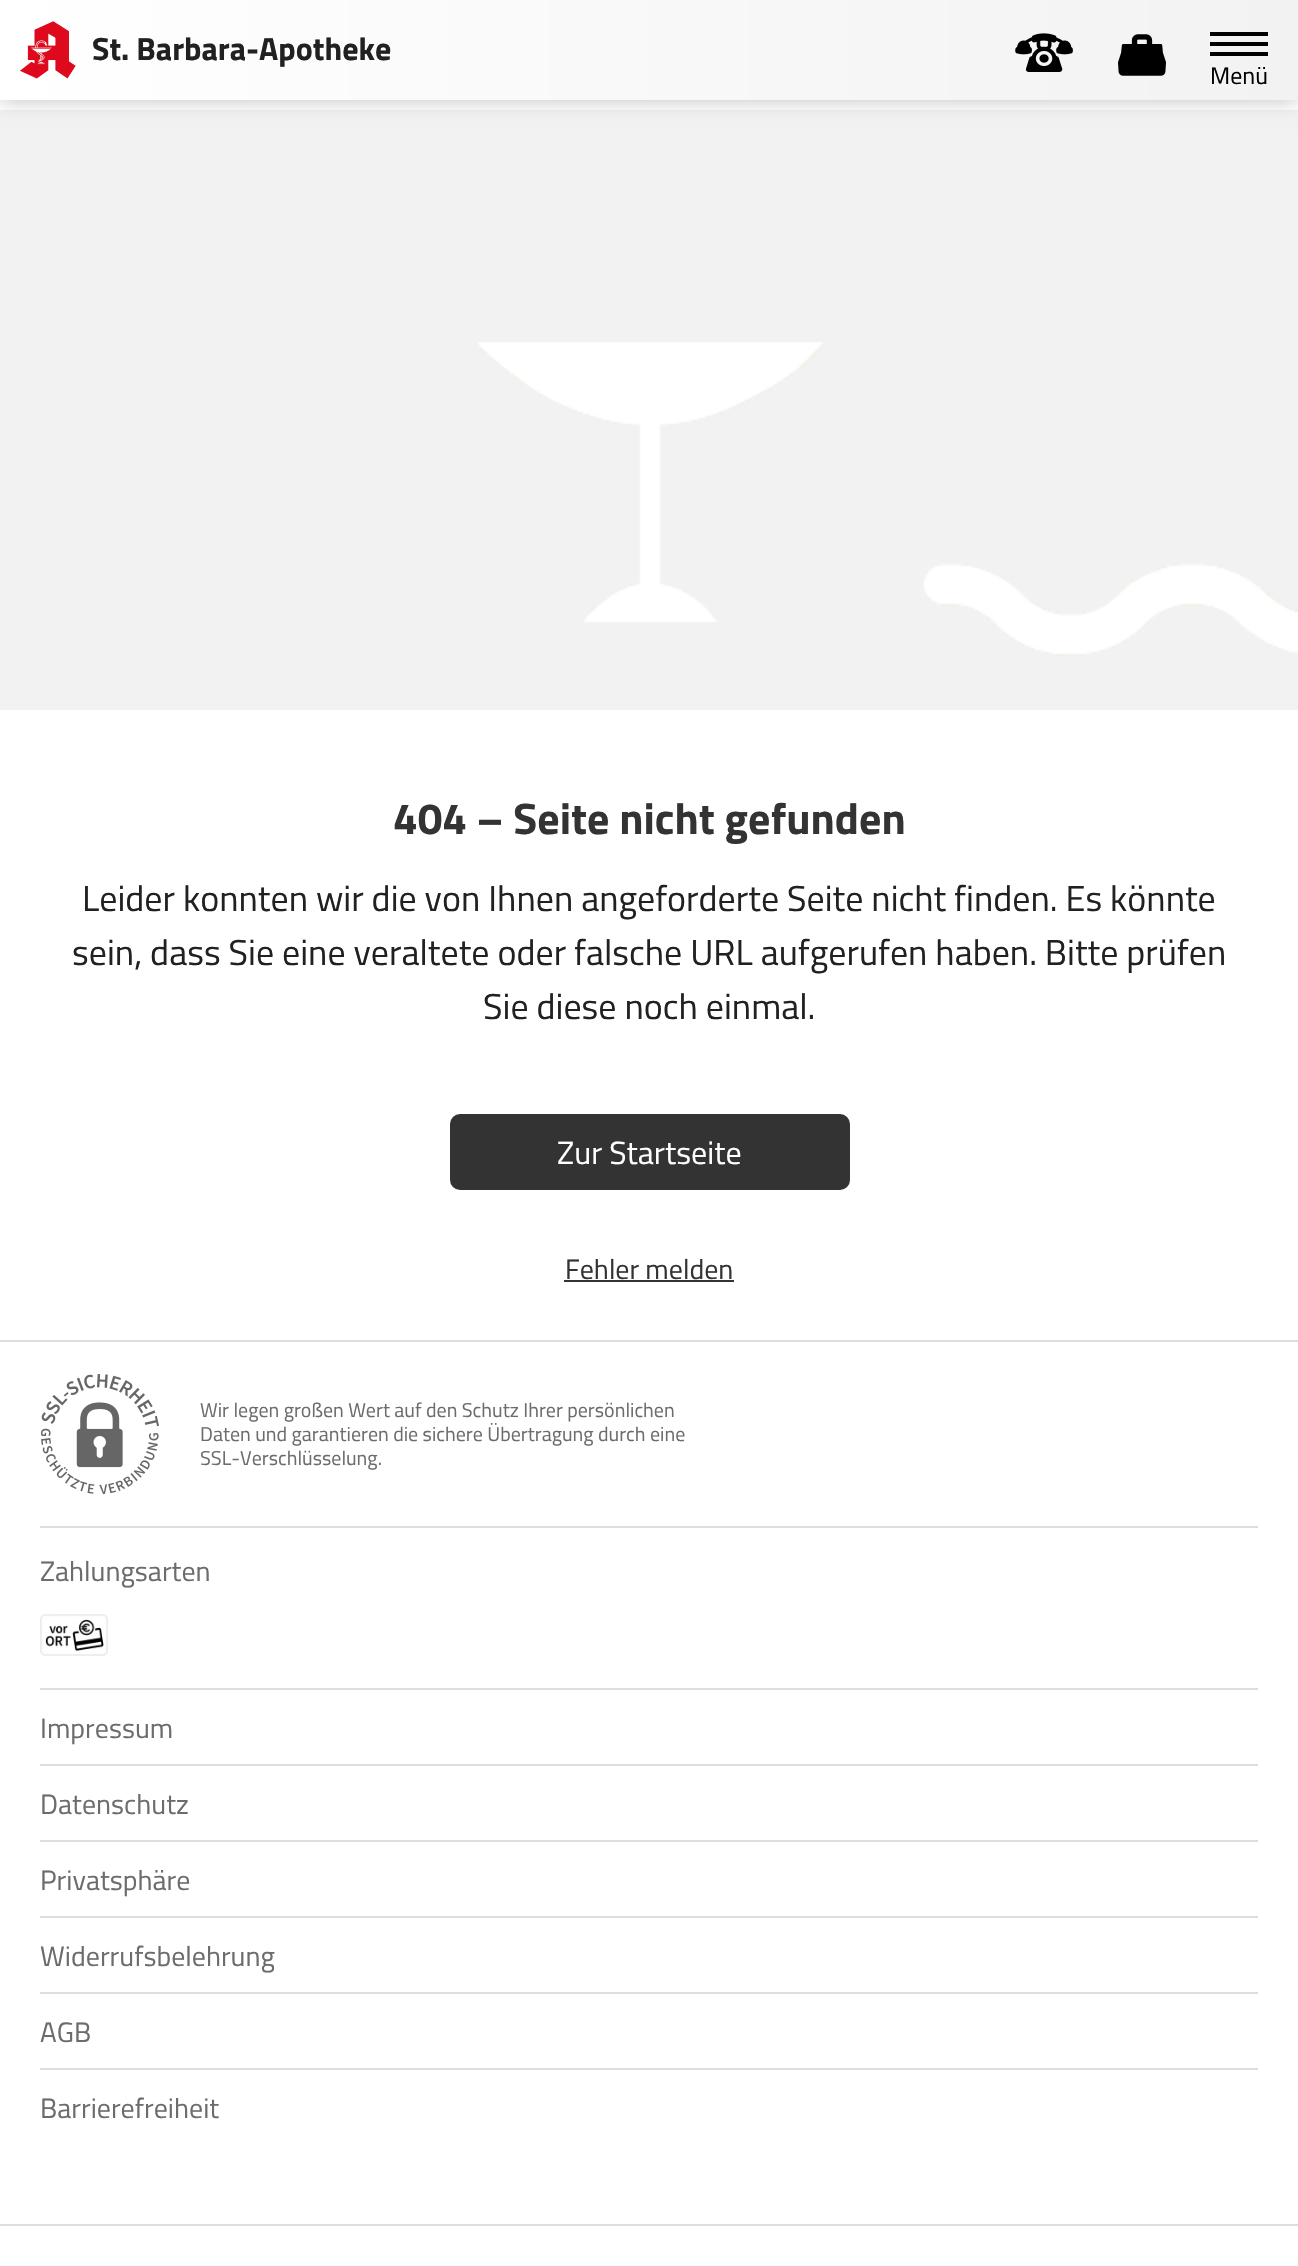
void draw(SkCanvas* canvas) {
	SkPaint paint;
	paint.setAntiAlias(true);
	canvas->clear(0xffffffff);
	paint.setColor(0xfff2f2f2);
	canvas->drawRect(SkRect::MakeXYWH(0, 110, 1298, 600), paint);
	paint.setColor(0x40000000);
	paint.setMaskFilter(SkMaskFilter::MakeBlur(kNormal_SkBlurStyle, 10));
	canvas->drawRect(SkRect::MakeXYWH(0, 0, 1298, 100), paint);
	paint.setMaskFilter(nullptr);
	{
		const SkColor colors[] = {0xffffffff, 0xfff2f2f2};
		const float stops[] = {0, 1};
		const SkPoint ends[] = {{0, 50}, {1298, 50}};
		paint.setShader(SkGradientShader::MakeLinear(ends, colors, stops, 2, SkTileMode::kClamp));
		paint.setAlpha(255);
	}
	canvas->drawRect(SkRect::MakeXYWH(0, 0, 1298, 100), paint);
	canvas->drawImageRect(SkImages::DeferredFromEncodedData(SkData::MakeFromFileName("img1.png")), SkRect::MakeXYWH(20, 21, 56, 58), SkSamplingOptions());
	SkFont f1(fontMgr->matchFamilyStyle("Titillium Web", SkFontStyle::Bold()), 32);
	f1.setSubpixel(true);
	paint.setShader(nullptr);
	paint.setColor(0xff212121);
	canvas->drawString("St. Barbara-Apotheke", 92, 60, f1, paint);
	canvas->drawImageRect(SkImages::DeferredFromEncodedData(SkData::MakeFromFileName("img2.png")), SkRect::MakeXYWH(1015, 33, 58, 39), SkSamplingOptions());
	canvas->drawImageRect(SkImages::DeferredFromEncodedData(SkData::MakeFromFileName("img3.png")), SkRect::MakeXYWH(1118, 34, 48, 42), SkSamplingOptions());
	paint.setColor(0xff000000);
	canvas->drawRect(SkRect::MakeXYWH(1210, 42, 58, 4), paint);
	canvas->drawRect(SkRect::MakeXYWH(1210, 32, 58, 4), paint);
	canvas->drawRect(SkRect::MakeXYWH(1210, 52, 58, 4), paint);
	SkFont f2(fontMgr->matchFamilyStyle("Titillium Web", SkFontStyle::Normal()), 24);
	f2.setSubpixel(true);
	canvas->drawString("Menü", 1210, 84, f2, paint);
	canvas->drawImageRect(SkImages::DeferredFromEncodedData(SkData::MakeFromFileName("img4.png")), SkRect::MakeXYWH(478, 342, 820, 314), SkSamplingOptions());
	SkFont f3(fontMgr->matchFamilyStyle("Titillium Web", SkFontStyle::Bold()), 44);
	f3.setSubpixel(true);
	paint.setColor(0xff333333);
	canvas->drawString("404 – Seite nicht gefunden", 393, 834, f3, paint);
	SkFont f4(fontMgr->matchFamilyStyle("Titillium Web", SkFontStyle::Normal()), 36);
	f4.setSubpixel(true);
	paint.setColor(0xff212121);
	canvas->drawString("Leider konnten wir die von Ihnen angeforderte Seite nicht finden. Es könnte", 82, 911, f4, paint);
	canvas->drawString("sein, dass Sie eine veraltete oder falsche URL aufgerufen haben. Bitte prüfen", 72, 965, f4, paint);
	canvas->drawString("Sie diese noch einmal.", 483, 1019, f4, paint);
	paint.setColor(0xff333333);
	canvas->drawRoundRect(SkRect::MakeXYWH(451, 1115, 398, 74), 9, 9, paint);
	paint.setStroke(true);
	paint.setStrokeWidth(2);
	canvas->drawRoundRect(SkRect::MakeXYWH(451, 1115, 398, 74), 9, 9, paint);
	SkFont f5(fontMgr->matchFamilyStyle("Titillium Web", SkFontStyle::Normal()), 32);
	f5.setSubpixel(true);
	paint.setStroke(false);
	paint.setColor(0xffffffff);
	canvas->drawString("Zur Startseite", 557, 1164, f5, paint);
	SkFont f6(fontMgr->matchFamilyStyle("Titillium Web", SkFontStyle::Normal()), 28);
	f6.setSubpixel(true);
	paint.setColor(0xff333333);
	canvas->drawString("Fehler melden", 565, 1279, f6, paint);
	canvas->drawRect(SkRect::MakeXYWH(564, 1280, 170, 2), paint);
	paint.setColor(0xffdedede);
	canvas->drawRect(SkRect::MakeXYWH(0, 1340, 1298, 2), paint);
	canvas->drawImageRect(SkImages::DeferredFromEncodedData(SkData::MakeFromFileName("img5.png")), SkRect::MakeXYWH(40, 1374, 119, 120), SkSamplingOptions());
	SkFont f7(fontMgr->matchFamilyStyle("Titillium Web", SkFontStyle::Normal()), 20);
	f7.setSubpixel(true);
	paint.setColor(0xff6c6c6c);
	canvas->drawString("Wir legen großen Wert auf den Schutz Ihrer persönlichen", 200, 1417, f7, paint);
	canvas->drawString("Daten und garantieren die sichere Übertragung durch eine", 200, 1441, f7, paint);
	canvas->drawString("SSL-Verschlüsselung.", 200, 1465, f7, paint);
	paint.setColor(0xffdedede);
	canvas->drawRect(SkRect::MakeXYWH(40, 1526, 1218, 2), paint);
	paint.setColor(0xff6c6c6c);
	canvas->drawString("Zahlungsarten", 40, 1581, f6, paint);
	canvas->drawImageRect(SkImages::DeferredFromEncodedData(SkData::MakeFromFileName("img6.png")), SkRect::MakeXYWH(40, 1614, 68, 42), SkSamplingOptions());
	paint.setColor(0xffdedede);
	canvas->drawRect(SkRect::MakeXYWH(40, 1688, 1218, 2), paint);
	paint.setColor(0xff6c6c6c);
	canvas->drawString("Impressum", 40, 1738, f6, paint);
	paint.setColor(0xffdedede);
	canvas->drawRect(SkRect::MakeXYWH(40, 1764, 1218, 2), paint);
	paint.setColor(0xff6c6c6c);
	canvas->drawString("Datenschutz", 40, 1814, f6, paint);
	paint.setColor(0xffdedede);
	canvas->drawRect(SkRect::MakeXYWH(40, 1840, 1218, 2), paint);
	paint.setColor(0xff6c6c6c);
	canvas->drawString("Privatsphäre", 40, 1890, f6, paint);
	paint.setColor(0xffdedede);
	canvas->drawRect(SkRect::MakeXYWH(40, 1916, 1218, 2), paint);
	paint.setColor(0xff6c6c6c);
	canvas->drawString("Widerrufsbelehrung", 40, 1966, f6, paint);
	paint.setColor(0xffdedede);
	canvas->drawRect(SkRect::MakeXYWH(40, 1992, 1218, 2), paint);
	paint.setColor(0xff6c6c6c);
	canvas->drawString("AGB", 40, 2042, f6, paint);
	paint.setColor(0xffdedede);
	canvas->drawRect(SkRect::MakeXYWH(40, 2068, 1218, 2), paint);
	paint.setColor(0xff6c6c6c);
	canvas->drawString("Barrierefreiheit", 40, 2118, f6, paint);
	paint.setColor(0xffdedede);
	canvas->drawRect(SkRect::MakeXYWH(0, 2224, 1298, 2), paint);
}
